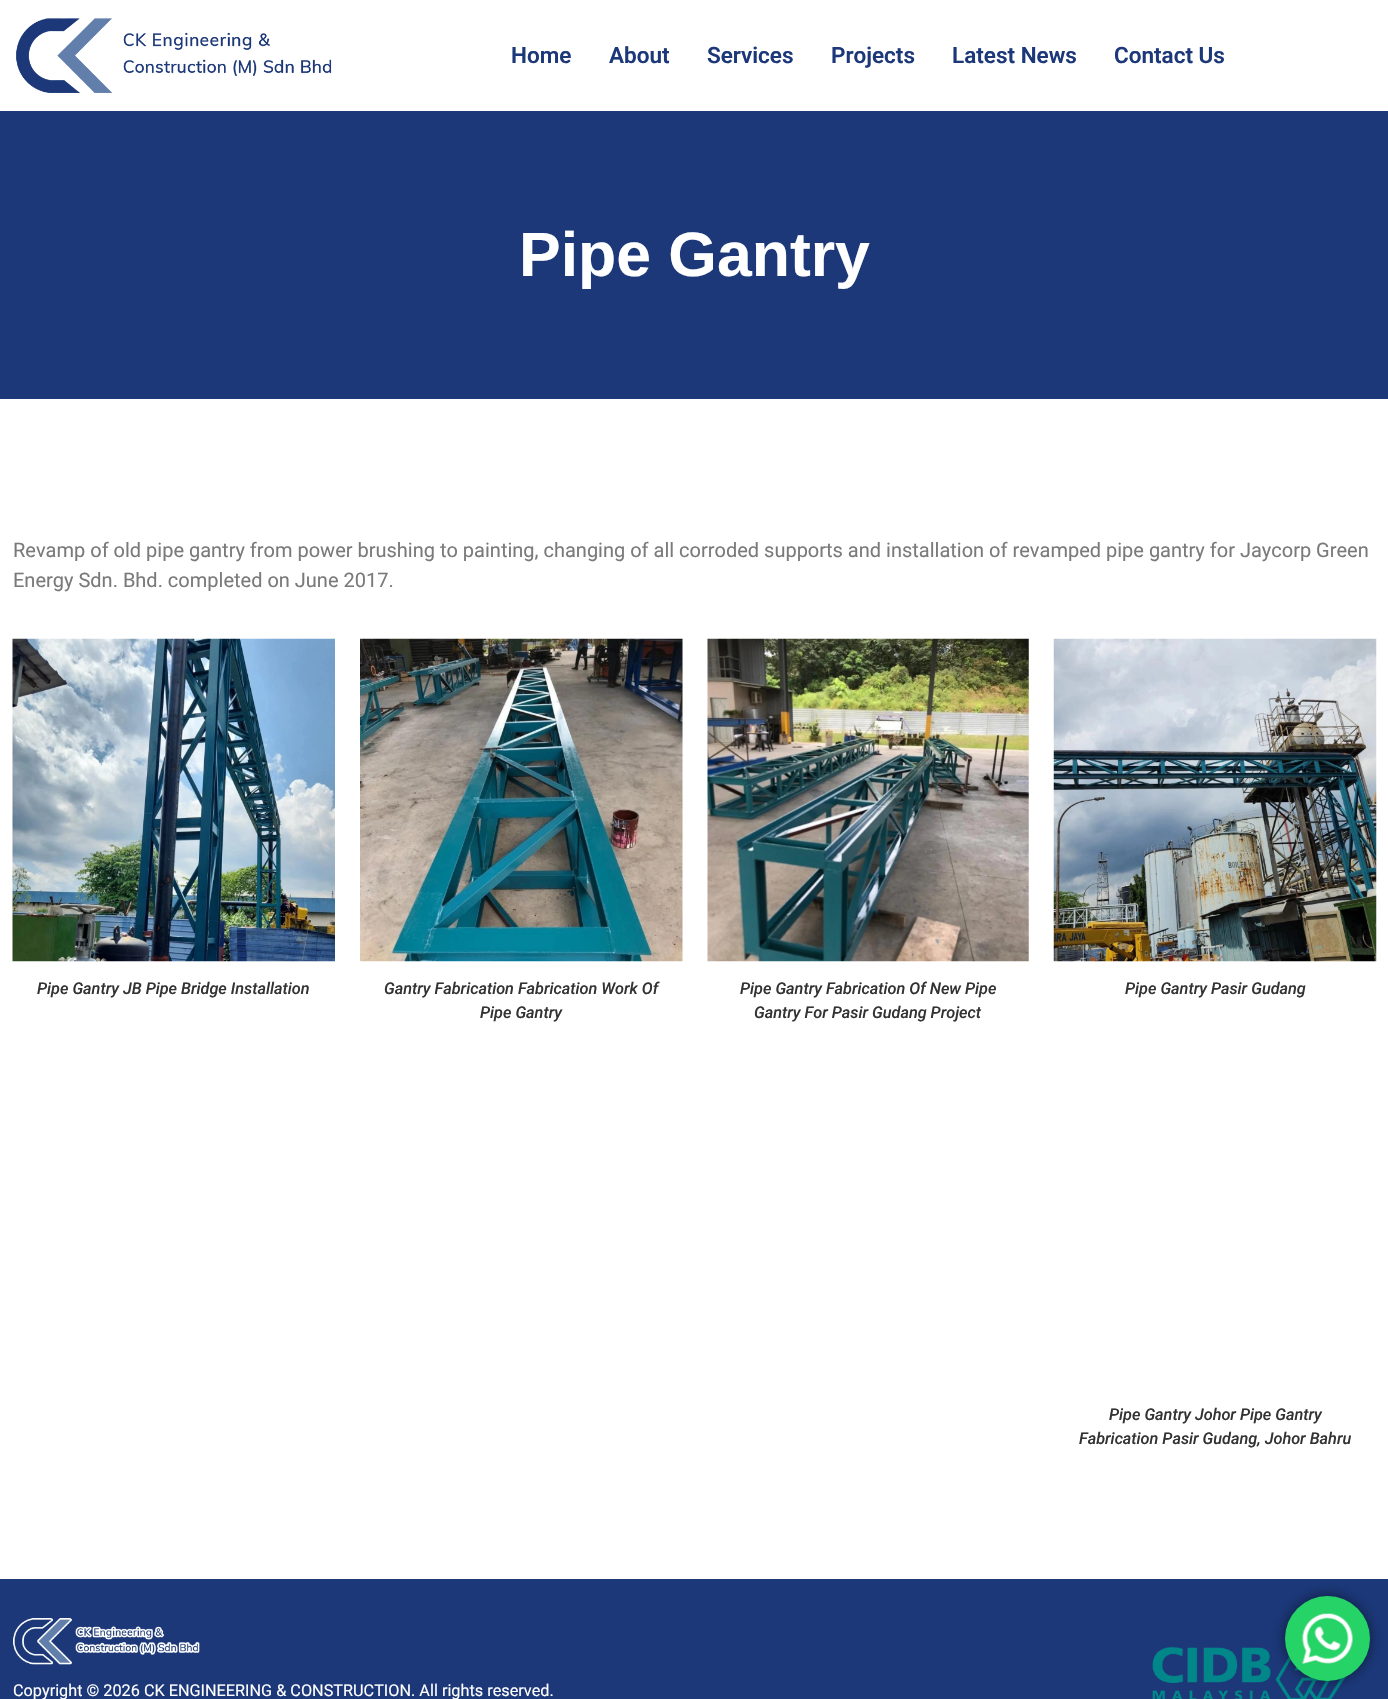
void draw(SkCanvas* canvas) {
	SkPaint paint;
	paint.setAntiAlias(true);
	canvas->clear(0xffffffff);
	canvas->drawImageRect(SkImages::DeferredFromEncodedData(SkData::MakeFromFileName("img1.png")), SkRect::MakeXYWH(16, 18, 316, 75), SkSamplingOptions());
	SkFont f1(fontMgr->matchFamilyStyle("Roboto", SkFontStyle(600, SkFontStyle::kNormal_Width, SkFontStyle::kUpright_Slant)), 22.5);
	f1.setSubpixel(true);
	paint.setColor(0xff1c3879);
	canvas->drawString("Home", 511, 63, f1, paint);
	canvas->drawString("About", 609, 63, f1, paint);
	canvas->drawString("Services", 707, 63, f1, paint);
	canvas->drawString("Projects", 831, 63, f1, paint);
	canvas->drawString("Latest News", 952, 63, f1, paint);
	canvas->drawString("Contact Us", 1114, 63, f1, paint);
	canvas->drawRect(SkRect::MakeXYWH(0, 111, 1388, 288), paint);
	SkFont f2(fontMgr->matchFamilyStyle("Liberation Sans", SkFontStyle::Bold()), 62.5);
	f2.setSubpixel(true);
	paint.setColor(0xffffffff);
	canvas->drawString("Pipe Gantry", 519, 276, f2, paint);
	SkFont f3(fontMgr->matchFamilyStyle("Roboto", SkFontStyle::Normal()), 20);
	f3.setSubpixel(true);
	paint.setColor(0xff7a7a7a);
	canvas->drawString("Revamp of old pipe gantry from power brushing to painting, changing of all corroded supports and installation of revamped pipe gantry for Jaycorp Green", 13, 557, f3, paint);
	canvas->drawString("Energy Sdn. Bhd. completed on June 2017.", 13, 587, f3, paint);
	canvas->drawImageRect(SkImages::DeferredFromEncodedData(SkData::MakeFromFileName("img2.png")), SkRect::MakeXYWH(12, 638, 323, 324), SkSamplingOptions());
	SkFont f4(fontMgr->matchFamilyStyle("Roboto", SkFontStyle(500, SkFontStyle::kNormal_Width, SkFontStyle::kItalic_Slant)), 16.25);
	f4.setSubpixel(true);
	paint.setColor(0xff333333);
	canvas->drawString("Pipe Gantry JB Pipe Bridge Installation", 37, 994, f4, paint);
	canvas->drawImageRect(SkImages::DeferredFromEncodedData(SkData::MakeFromFileName("img3.png")), SkRect::MakeXYWH(360, 638, 323, 324), SkSamplingOptions());
	canvas->drawString("Gantry Fabrication Fabrication Work Of", 384, 994, f4, paint);
	canvas->drawString("Pipe Gantry", 480, 1018, f4, paint);
	canvas->drawImageRect(SkImages::DeferredFromEncodedData(SkData::MakeFromFileName("img4.png")), SkRect::MakeXYWH(707, 638, 322, 324), SkSamplingOptions());
	canvas->drawString("Pipe Gantry Fabrication Of New Pipe", 740, 994, f4, paint);
	canvas->drawString("Gantry For Pasir Gudang Project", 754, 1018, f4, paint);
	canvas->drawImageRect(SkImages::DeferredFromEncodedData(SkData::MakeFromFileName("img5.png")), SkRect::MakeXYWH(1053, 638, 324, 324), SkSamplingOptions());
	canvas->drawString("Pipe Gantry Pasir Gudang", 1125, 994, f4, paint);
	canvas->drawString("Pipe Gantry Johor Pipe Gantry", 1109, 1420, f4, paint);
	canvas->drawString("Fabrication Pasir Gudang, Johor Bahru", 1079, 1444, f4, paint);
	paint.setColor(0xff1c3879);
	canvas->drawRect(SkRect::MakeXYWH(0, 1579, 1388, 120), paint);
	canvas->drawImageRect(SkImages::DeferredFromEncodedData(SkData::MakeFromFileName("img6.png")), SkRect::MakeXYWH(13, 1618, 187, 47), SkSamplingOptions());
	SkFont f5(fontMgr->matchFamilyStyle("Roboto", SkFontStyle::Normal()), 16.25);
	f5.setSubpixel(true);
	paint.setColor(0xffffffff);
	canvas->drawString("Copyright © 2026 CK ENGINEERING & CONSTRUCTION. All rights reserved.", 13, 1696, f5, paint);
	canvas->drawImageRect(SkImages::DeferredFromEncodedData(SkData::MakeFromFileName("img7.png")), SkRect::MakeXYWH(1152, 1647, 194, 52), SkSamplingOptions());
	paint.setColor(0x80000000);
	paint.setMaskFilter(SkMaskFilter::MakeBlur(kNormal_SkBlurStyle, 7));
	canvas->drawRoundRect(SkRect::MakeXYWH(1285, 1596, 85, 85), 42.5, 42.5, paint);
	paint.setMaskFilter(nullptr);
	paint.setColor(0xff25d366);
	canvas->drawCircle(1327.5, 1638.5, 42.5, paint);
	canvas->drawImageRect(SkImages::DeferredFromEncodedData(SkData::MakeFromFileName("img8.png")), SkRect::MakeXYWH(1302, 1613, 51, 51), SkSamplingOptions());
}
